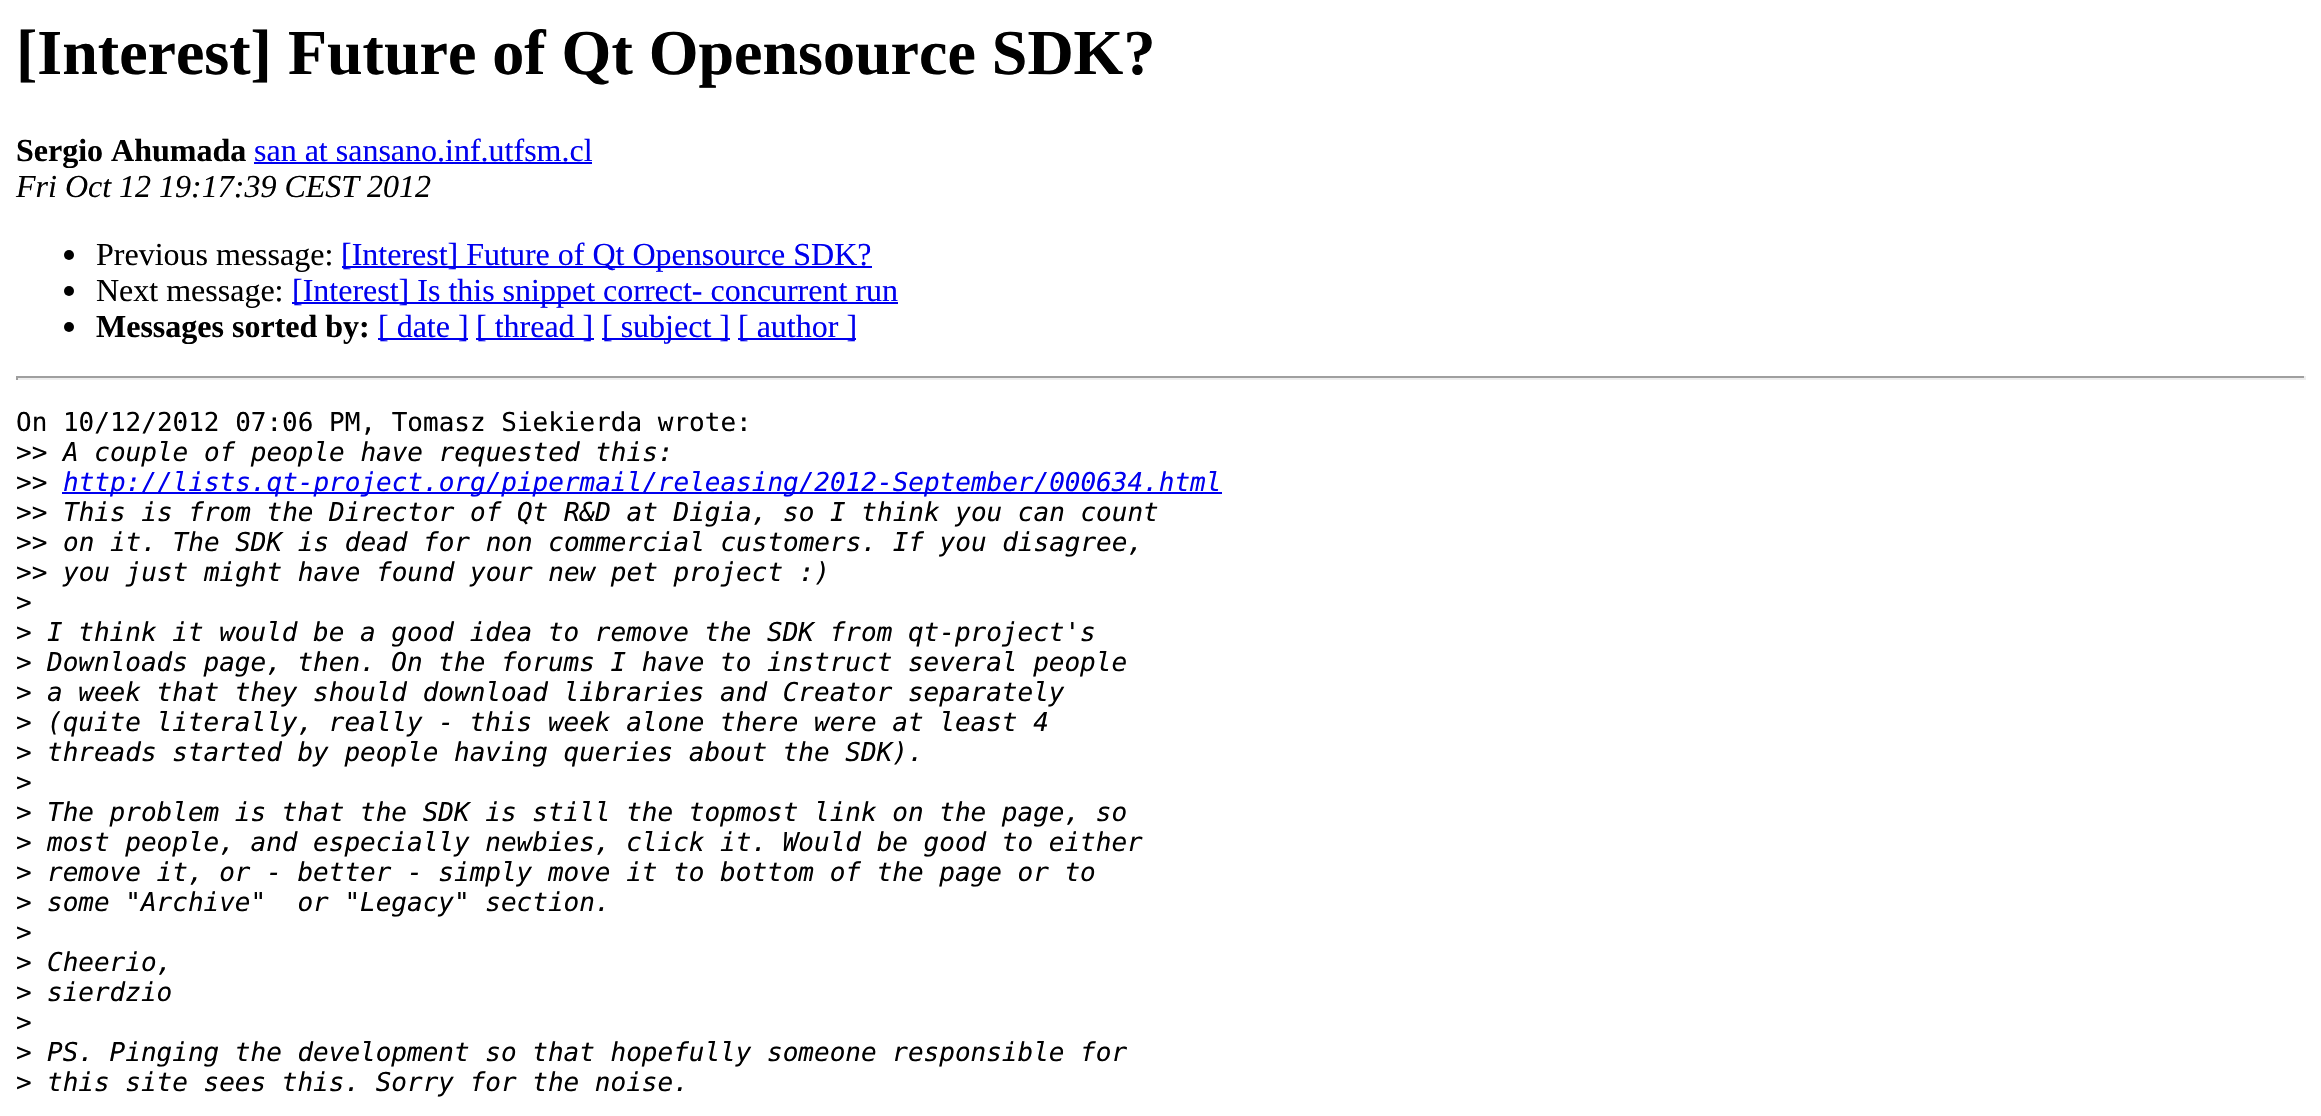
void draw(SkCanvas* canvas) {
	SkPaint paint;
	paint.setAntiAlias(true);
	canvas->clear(0xffffffff);
	SkFont f1(fontMgr->matchFamilyStyle("Liberation Serif", SkFontStyle::Bold()), 64);
	f1.setSubpixel(true);
	paint.setColor(0xff000000);
	canvas->drawString("[Interest] Future of Qt Opensource SDK?", 16, 74, f1, paint);
	SkFont f2(fontMgr->matchFamilyStyle("Liberation Serif", SkFontStyle::Bold()), 32);
	f2.setSubpixel(true);
	canvas->drawString("Sergio Ahumada", 16, 161, f2, paint);
	SkFont f3(fontMgr->matchFamilyStyle("Liberation Serif", SkFontStyle::Normal()), 32);
	f3.setSubpixel(true);
	paint.setColor(0xff0000ee);
	canvas->drawString("san at sansano.inf.utfsm.cl", 254, 161, f3, paint);
	canvas->drawRect(SkRect::MakeXYWH(254, 162, 338, 2), paint);
	SkFont f4(fontMgr->matchFamilyStyle("Liberation Serif", SkFontStyle::Italic()), 32);
	f4.setSubpixel(true);
	paint.setColor(0xff000000);
	canvas->drawString("Fri Oct 12 19:17:39 CEST 2012", 16, 197, f4, paint);
	canvas->drawCircle(69, 255, 5, paint);
	canvas->drawString("Previous message:", 96, 265, f3, paint);
	paint.setColor(0xff0000ee);
	canvas->drawRect(SkRect::MakeXYWH(342, 266, 530, 2), paint);
	canvas->drawString("[Interest] Future of Qt Opensource SDK?", 341, 265, f3, paint);
	paint.setColor(0xff000000);
	canvas->drawCircle(69, 291, 5, paint);
	canvas->drawString("Next message:", 96, 301, f3, paint);
	paint.setColor(0xff0000ee);
	canvas->drawRect(SkRect::MakeXYWH(292, 302, 606, 2), paint);
	canvas->drawString("[Interest] Is this snippet correct- concurrent run", 292, 301, f3, paint);
	paint.setColor(0xff000000);
	canvas->drawCircle(69, 327, 5, paint);
	canvas->drawString("Messages sorted by:", 96, 337, f2, paint);
	paint.setColor(0xff0000ee);
	canvas->drawRect(SkRect::MakeXYWH(378, 338, 90, 2), paint);
	canvas->drawString("[ date ]", 378, 337, f3, paint);
	canvas->drawRect(SkRect::MakeXYWH(476, 338, 118, 2), paint);
	canvas->drawString("[ thread ]", 476, 337, f3, paint);
	canvas->drawRect(SkRect::MakeXYWH(602, 338, 128, 2), paint);
	canvas->drawString("[ subject ]", 602, 337, f3, paint);
	canvas->drawRect(SkRect::MakeXYWH(738, 338, 118, 2), paint);
	canvas->drawString("[ author ]", 738, 337, f3, paint);
	paint.setColor(0xff9f9f9f);
	canvas->drawRect(SkRect::MakeXYWH(16, 376, 2290, 2), paint);
	paint.setColor(0xffeeeeee);
	canvas->drawRect(SkRect::MakeXYWH(2304, 376, 2, 4), paint);
	canvas->drawRect(SkRect::MakeXYWH(16, 378, 2290, 2), paint);
	paint.setColor(0xff9f9f9f);
	canvas->drawRect(SkRect::MakeXYWH(16, 376, 2, 4), paint);
	SkFont f5(fontMgr->matchFamilyStyle("DejaVu Sans Mono", SkFontStyle::Normal()), 26);
	f5.setSubpixel(true);
	paint.setColor(0xff000000);
	canvas->drawString("On 10/12/2012 07:06 PM, Tomasz Siekierda wrote:", 16, 431, f5, paint);
	canvas->drawString(">>", 16, 461, f5, paint);
	SkFont f6(fontMgr->matchFamilyStyle("DejaVu Sans Mono", SkFontStyle::Italic()), 26);
	f6.setSubpixel(true);
	canvas->drawString("A couple of people have requested this:", 63, 461, f6, paint);
	canvas->drawString(">>", 16, 491, f5, paint);
	paint.setColor(0xff0000ee);
	canvas->drawRect(SkRect::MakeXYWH(62, 492, 1160, 2), paint);
	canvas->drawString("http://lists.qt-project.org/pipermail/releasing/2012-September/000634.html", 63, 491, f6, paint);
	paint.setColor(0xff000000);
	canvas->drawString(">>", 16, 521, f5, paint);
	canvas->drawString("This is from the Director of Qt R&D at Digia, so I think you can count", 63, 521, f6, paint);
	canvas->drawString(">>", 16, 551, f5, paint);
	canvas->drawString("on it. The SDK is dead for non commercial customers. If you disagree,", 63, 551, f6, paint);
	canvas->drawString(">>", 16, 581, f5, paint);
	canvas->drawString("you just might have found your new pet project :)", 63, 581, f6, paint);
	canvas->drawString(">", 16, 611, f5, paint);
	canvas->drawString(">", 16, 641, f5, paint);
	canvas->drawString("I think it would be a good idea to remove the SDK from qt-project's", 47, 641, f6, paint);
	canvas->drawString(">", 16, 671, f5, paint);
	canvas->drawString("Downloads page, then. On the forums I have to instruct several people", 47, 671, f6, paint);
	canvas->drawString(">", 16, 701, f5, paint);
	canvas->drawString("a week that they should download libraries and Creator separately", 47, 701, f6, paint);
	canvas->drawString(">", 16, 731, f5, paint);
	canvas->drawString("(quite literally, really - this week alone there were at least 4", 47, 731, f6, paint);
	canvas->drawString(">", 16, 761, f5, paint);
	canvas->drawString("threads started by people having queries about the SDK).", 47, 761, f6, paint);
	canvas->drawString(">", 16, 791, f5, paint);
	canvas->drawString(">", 16, 821, f5, paint);
	canvas->drawString("The problem is that the SDK is still the topmost link on the page, so", 47, 821, f6, paint);
	canvas->drawString(">", 16, 851, f5, paint);
	canvas->drawString("most people, and especially newbies, click it. Would be good to either", 47, 851, f6, paint);
	canvas->drawString(">", 16, 881, f5, paint);
	canvas->drawString("remove it, or - better - simply move it to bottom of the page or to", 47, 881, f6, paint);
	canvas->drawString(">", 16, 911, f5, paint);
	canvas->drawString("some \"Archive\"  or \"Legacy\" section.", 47, 911, f6, paint);
	canvas->drawString(">", 16, 941, f5, paint);
	canvas->drawString(">", 16, 971, f5, paint);
	canvas->drawString("Cheerio,", 47, 971, f6, paint);
	canvas->drawString(">", 16, 1001, f5, paint);
	canvas->drawString("sierdzio", 47, 1001, f6, paint);
	canvas->drawString(">", 16, 1031, f5, paint);
	canvas->drawString(">", 16, 1061, f5, paint);
	canvas->drawString("PS. Pinging the development so that hopefully someone responsible for", 47, 1061, f6, paint);
	canvas->drawString(">", 16, 1091, f5, paint);
	canvas->drawString("this site sees this. Sorry for the noise.", 47, 1091, f6, paint);
}
